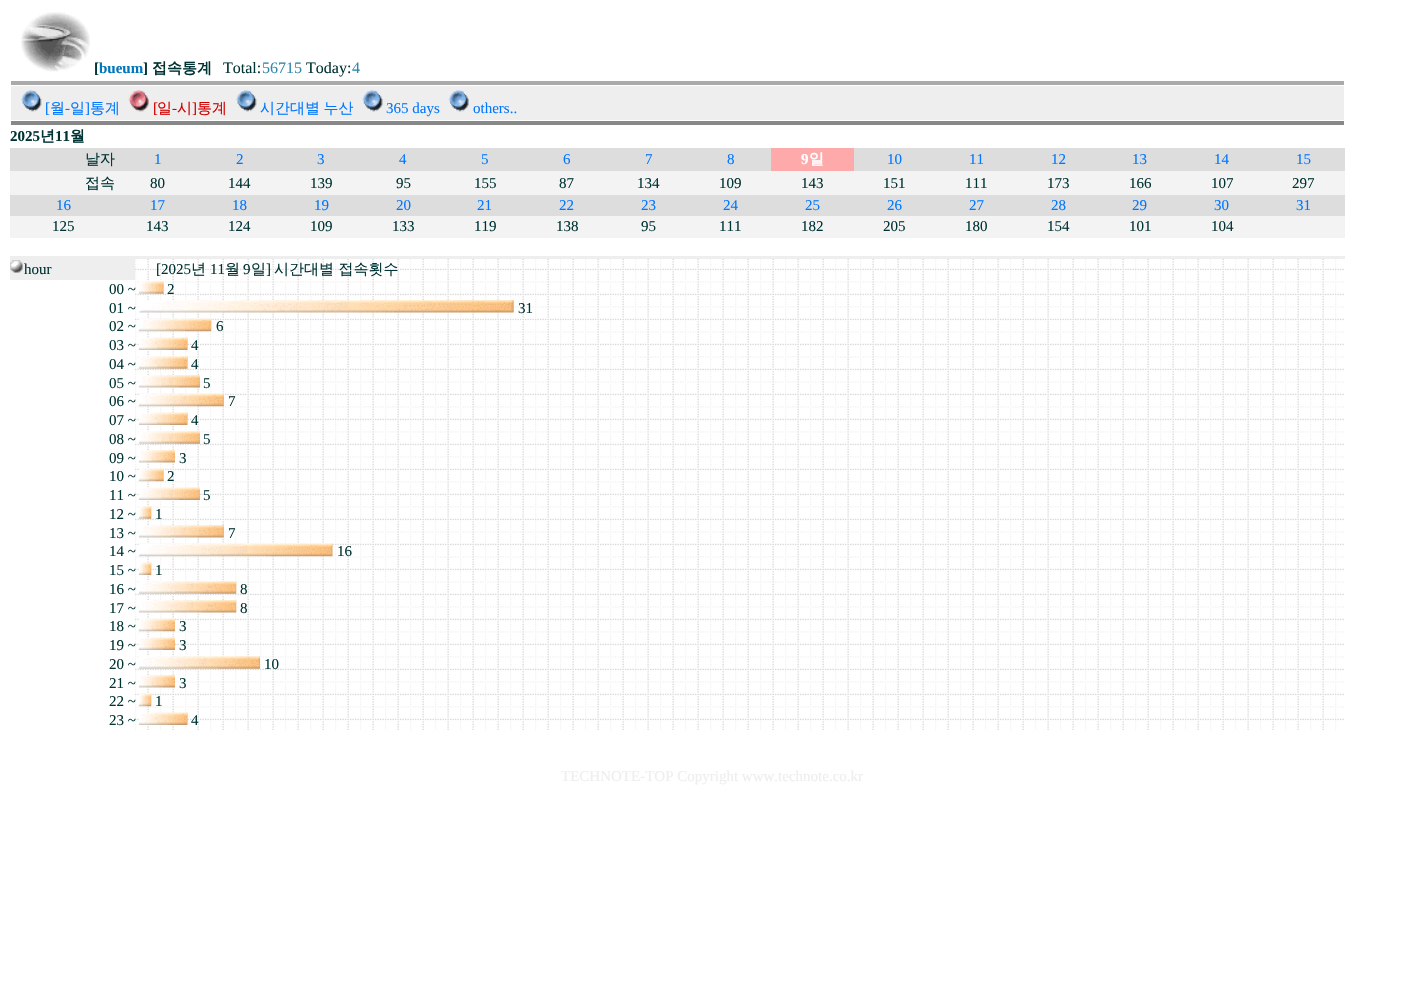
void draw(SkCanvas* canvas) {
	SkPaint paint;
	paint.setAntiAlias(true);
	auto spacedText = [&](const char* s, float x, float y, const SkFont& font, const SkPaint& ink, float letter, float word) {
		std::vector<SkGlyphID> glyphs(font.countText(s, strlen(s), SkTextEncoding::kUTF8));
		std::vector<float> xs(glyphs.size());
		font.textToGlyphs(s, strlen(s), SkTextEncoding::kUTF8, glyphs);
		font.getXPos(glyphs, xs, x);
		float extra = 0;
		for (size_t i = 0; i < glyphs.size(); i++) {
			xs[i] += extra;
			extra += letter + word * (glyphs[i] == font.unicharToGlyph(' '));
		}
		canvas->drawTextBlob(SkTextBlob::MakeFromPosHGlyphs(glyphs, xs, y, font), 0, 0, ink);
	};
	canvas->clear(0xffffffff);
	canvas->drawImageRect(SkImages::DeferredFromEncodedData(SkData::MakeFromFileName("img1.png")), SkRect::MakeXYWH(21, 12, 69, 60), SkSamplingOptions());
	SkFont f1(fontMgr->matchFamilyStyle("Liberation Serif", SkFontStyle::Bold()), 15);
	f1.setSubpixel(true);
	paint.setColor(0xff003333);
	canvas->drawString("[", 94, 73, f1, paint);
	paint.setColor(0xff0077bb);
	canvas->drawString("bueum", 99, 73, f1, paint);
	paint.setColor(0xff003333);
	canvas->drawString("]", 143, 73, f1, paint);
	SkFont f2(fontMgr->matchFamilyStyle("WenQuanYi Zen Hei", SkFontStyle::Bold()), 15);
	f2.setSubpixel(true);
	canvas->drawString("접속통계", 152, 73, f2, paint);
	SkFont f3(fontMgr->matchFamilyStyle("Liberation Serif", SkFontStyle::Normal()), 16);
	f3.setSubpixel(true);
	canvas->drawString("Total:", 223, 73, f3, paint);
	paint.setColor(0xff3388aa);
	canvas->drawString("56715", 262, 73, f3, paint);
	paint.setColor(0xff003333);
	canvas->drawString("Today:", 306, 73, f3, paint);
	paint.setColor(0xff3388aa);
	canvas->drawString("4", 352, 73, f3, paint);
	paint.setColor(0xffaaaaaa);
	canvas->drawRect(SkRect::MakeXYWH(11, 81, 1333, 4), paint);
	paint.setColor(0xffeeeeee);
	canvas->drawRect(SkRect::MakeXYWH(11, 86, 1333, 34), paint);
	canvas->drawImageRect(SkImages::DeferredFromEncodedData(SkData::MakeFromFileName("img2.png")), SkRect::MakeXYWH(21, 90, 21, 22), SkSamplingOptions());
	SkFont f4(fontMgr->matchFamilyStyle("Liberation Serif", SkFontStyle::Normal()), 15);
	f4.setSubpixel(true);
	paint.setColor(0xff0077ff);
	canvas->drawString("[", 45, 113, f4, paint);
	SkFont f5(fontMgr->matchFamilyStyle("WenQuanYi Zen Hei", SkFontStyle(500, SkFontStyle::kNormal_Width, SkFontStyle::kUpright_Slant)), 15);
	f5.setSubpixel(true);
	canvas->drawString("월", 50, 113, f5, paint);
	canvas->drawString("-", 65, 113, f4, paint);
	canvas->drawString("일", 70, 113, f5, paint);
	canvas->drawString("]", 85, 113, f4, paint);
	canvas->drawString("통계", 90, 113, f5, paint);
	canvas->drawImageRect(SkImages::DeferredFromEncodedData(SkData::MakeFromFileName("img3.png")), SkRect::MakeXYWH(128, 90, 21, 22), SkSamplingOptions());
	paint.setColor(0xffd00000);
	canvas->drawString("[", 153, 113, f4, paint);
	canvas->drawString("일", 157, 113, f5, paint);
	canvas->drawString("-", 172, 113, f4, paint);
	canvas->drawString("시", 177, 113, f5, paint);
	canvas->drawString("]", 192, 113, f4, paint);
	canvas->drawString("통계", 197, 113, f5, paint);
	canvas->drawImageRect(SkImages::DeferredFromEncodedData(SkData::MakeFromFileName("img4.png")), SkRect::MakeXYWH(236, 90, 21, 22), SkSamplingOptions());
	paint.setColor(0xff0077ff);
	spacedText("시간대별 누산", 260, 113, f5, paint, 0, -1);
	canvas->drawImageRect(SkImages::DeferredFromEncodedData(SkData::MakeFromFileName("img5.png")), SkRect::MakeXYWH(362, 90, 21, 22), SkSamplingOptions());
	canvas->drawString("365 days", 386, 113, f4, paint);
	canvas->drawImageRect(SkImages::DeferredFromEncodedData(SkData::MakeFromFileName("img6.png")), SkRect::MakeXYWH(448, 90, 21, 22), SkSamplingOptions());
	canvas->drawString("others..", 473, 113, f4, paint);
	paint.setColor(0xff888888);
	canvas->drawRect(SkRect::MakeXYWH(11, 121, 1333, 4), paint);
	paint.setColor(0xff003333);
	canvas->drawString("2025", 10, 141, f1, paint);
	canvas->drawString("년", 40, 141, f2, paint);
	canvas->drawString("11", 55, 141, f1, paint);
	canvas->drawString("월", 70, 141, f2, paint);
	paint.setColor(0xffdddddd);
	canvas->drawRect(SkRect::MakeXYWH(10, 148, 761, 23), paint);
	paint.setColor(0xff003333);
	canvas->drawString("날자", 85, 164, f5, paint);
	paint.setColor(0xff0077ff);
	canvas->drawString("1", 154, 164, f4, paint);
	canvas->drawString("2", 236, 164, f4, paint);
	canvas->drawString("3", 317, 164, f4, paint);
	canvas->drawString("4", 399, 164, f4, paint);
	canvas->drawString("5", 481, 164, f4, paint);
	canvas->drawString("6", 563, 164, f4, paint);
	canvas->drawString("7", 645, 164, f4, paint);
	canvas->drawString("8", 727, 164, f4, paint);
	paint.setColor(0xffffaaaa);
	canvas->drawRect(SkRect::MakeXYWH(771, 148, 83, 23), paint);
	paint.setColor(0xffffffff);
	canvas->drawString("9", 801, 164, f1, paint);
	canvas->drawString("일", 809, 164, f2, paint);
	paint.setColor(0xffdddddd);
	canvas->drawRect(SkRect::MakeXYWH(854, 148, 491, 23), paint);
	paint.setColor(0xff0077ff);
	canvas->drawString("10", 887, 164, f4, paint);
	canvas->drawString("11", 969, 164, f4, paint);
	canvas->drawString("12", 1051, 164, f4, paint);
	canvas->drawString("13", 1132, 164, f4, paint);
	canvas->drawString("14", 1214, 164, f4, paint);
	canvas->drawString("15", 1296, 164, f4, paint);
	paint.setColor(0xfff3f3f3);
	canvas->drawRect(SkRect::MakeXYWH(10, 171, 1335, 24), paint);
	paint.setColor(0xff003333);
	canvas->drawString("접속", 85, 188, f5, paint);
	canvas->drawString("80", 150, 188, f4, paint);
	canvas->drawString("144", 228, 188, f4, paint);
	canvas->drawString("139", 310, 188, f4, paint);
	canvas->drawString("95", 396, 188, f4, paint);
	canvas->drawString("155", 474, 188, f4, paint);
	canvas->drawString("87", 559, 188, f4, paint);
	canvas->drawString("134", 637, 188, f4, paint);
	canvas->drawString("109", 719, 188, f4, paint);
	canvas->drawString("143", 801, 188, f4, paint);
	canvas->drawString("151", 883, 188, f4, paint);
	canvas->drawString("111", 965, 188, f4, paint);
	canvas->drawString("173", 1047, 188, f4, paint);
	canvas->drawString("166", 1129, 188, f4, paint);
	canvas->drawString("107", 1211, 188, f4, paint);
	canvas->drawString("297", 1292, 188, f4, paint);
	paint.setColor(0xffdddddd);
	canvas->drawRect(SkRect::MakeXYWH(10, 195, 1335, 21), paint);
	paint.setColor(0xff0077ff);
	canvas->drawString("16", 56, 210, f4, paint);
	canvas->drawString("17", 150, 210, f4, paint);
	canvas->drawString("18", 232, 210, f4, paint);
	canvas->drawString("19", 314, 210, f4, paint);
	canvas->drawString("20", 396, 210, f4, paint);
	canvas->drawString("21", 477, 210, f4, paint);
	canvas->drawString("22", 559, 210, f4, paint);
	canvas->drawString("23", 641, 210, f4, paint);
	canvas->drawString("24", 723, 210, f4, paint);
	canvas->drawString("25", 805, 210, f4, paint);
	canvas->drawString("26", 887, 210, f4, paint);
	canvas->drawString("27", 969, 210, f4, paint);
	canvas->drawString("28", 1051, 210, f4, paint);
	canvas->drawString("29", 1132, 210, f4, paint);
	canvas->drawString("30", 1214, 210, f4, paint);
	canvas->drawString("31", 1296, 210, f4, paint);
	paint.setColor(0xfff3f3f3);
	canvas->drawRect(SkRect::MakeXYWH(10, 216, 1335, 22), paint);
	paint.setColor(0xff003333);
	canvas->drawString("125", 52, 231, f4, paint);
	canvas->drawString("143", 146, 231, f4, paint);
	canvas->drawString("124", 228, 231, f4, paint);
	canvas->drawString("109", 310, 231, f4, paint);
	canvas->drawString("133", 392, 231, f4, paint);
	canvas->drawString("119", 474, 231, f4, paint);
	canvas->drawString("138", 556, 231, f4, paint);
	canvas->drawString("95", 641, 231, f4, paint);
	canvas->drawString("111", 719, 231, f4, paint);
	canvas->drawString("182", 801, 231, f4, paint);
	canvas->drawString("205", 883, 231, f4, paint);
	canvas->drawString("180", 965, 231, f4, paint);
	canvas->drawString("154", 1047, 231, f4, paint);
	canvas->drawString("101", 1129, 231, f4, paint);
	canvas->drawString("104", 1211, 231, f4, paint);
	canvas->drawImageRect(SkImages::DeferredFromEncodedData(SkData::MakeFromFileName("img7.png")), SkRect::MakeXYWH(135, 259, 1209, 471), SkSamplingOptions());
	paint.setColor(0xffeeeeee);
	canvas->drawRect(SkRect::MakeXYWH(10, 256, 1335, 3), paint);
	canvas->drawRect(SkRect::MakeXYWH(10, 259, 125, 21), paint);
	canvas->drawImageRect(SkImages::DeferredFromEncodedData(SkData::MakeFromFileName("img8.png")), SkRect::MakeXYWH(10, 260, 13, 13), SkSamplingOptions());
	paint.setColor(0xff003333);
	canvas->drawString("hour", 24, 274, f4, paint);
	canvas->drawString("[2025", 156, 274, f4, paint);
	canvas->drawString("년", 191, 274, f5, paint);
	canvas->drawString("11", 210, 274, f4, paint);
	canvas->drawString("월", 225, 274, f5, paint);
	canvas->drawString("9", 243, 274, f4, paint);
	canvas->drawString("일", 251, 274, f5, paint);
	canvas->drawString("]", 266, 274, f4, paint);
	canvas->drawString("시간대별 접속횟수", 274, 274, f5, paint);
	canvas->drawString("00 ~", 109, 294, f4, paint);
	canvas->drawImageRect(SkImages::DeferredFromEncodedData(SkData::MakeFromFileName("img9.png")), SkRect::MakeXYWH(139, 281, 25, 13), SkSamplingOptions());
	canvas->drawString("2", 167, 294, f4, paint);
	canvas->drawString("01 ~", 109, 313, f4, paint);
	canvas->drawImageRect(SkImages::DeferredFromEncodedData(SkData::MakeFromFileName("img10.png")), SkRect::MakeXYWH(138, 300, 376, 13), SkSamplingOptions());
	canvas->drawString("31", 518, 313, f4, paint);
	canvas->drawString("02 ~", 109, 331, f4, paint);
	canvas->drawImageRect(SkImages::DeferredFromEncodedData(SkData::MakeFromFileName("img11.png")), SkRect::MakeXYWH(138, 318, 74, 14), SkSamplingOptions());
	canvas->drawString("6", 216, 331, f4, paint);
	canvas->drawString("03 ~", 109, 350, f4, paint);
	canvas->drawImageRect(SkImages::DeferredFromEncodedData(SkData::MakeFromFileName("img12.png")), SkRect::MakeXYWH(138, 337, 50, 13), SkSamplingOptions());
	canvas->drawString("4", 191, 350, f4, paint);
	canvas->drawString("04 ~", 109, 369, f4, paint);
	canvas->drawImageRect(SkImages::DeferredFromEncodedData(SkData::MakeFromFileName("img13.png")), SkRect::MakeXYWH(139, 356, 49, 13), SkSamplingOptions());
	canvas->drawString("4", 191, 369, f4, paint);
	canvas->drawString("05 ~", 109, 388, f4, paint);
	canvas->drawImageRect(SkImages::DeferredFromEncodedData(SkData::MakeFromFileName("img14.png")), SkRect::MakeXYWH(138, 375, 62, 13), SkSamplingOptions());
	canvas->drawString("5", 203, 388, f4, paint);
	canvas->drawString("06 ~", 109, 406, f4, paint);
	canvas->drawImageRect(SkImages::DeferredFromEncodedData(SkData::MakeFromFileName("img15.png")), SkRect::MakeXYWH(138, 393, 86, 14), SkSamplingOptions());
	canvas->drawString("7", 228, 406, f4, paint);
	canvas->drawString("07 ~", 109, 425, f4, paint);
	canvas->drawImageRect(SkImages::DeferredFromEncodedData(SkData::MakeFromFileName("img12.png")), SkRect::MakeXYWH(138, 412, 50, 13), SkSamplingOptions());
	canvas->drawString("4", 191, 425, f4, paint);
	canvas->drawString("08 ~", 109, 444, f4, paint);
	canvas->drawImageRect(SkImages::DeferredFromEncodedData(SkData::MakeFromFileName("img16.png")), SkRect::MakeXYWH(139, 431, 61, 13), SkSamplingOptions());
	canvas->drawString("5", 203, 444, f4, paint);
	canvas->drawString("09 ~", 109, 463, f4, paint);
	canvas->drawImageRect(SkImages::DeferredFromEncodedData(SkData::MakeFromFileName("img17.png")), SkRect::MakeXYWH(138, 450, 37, 13), SkSamplingOptions());
	canvas->drawString("3", 179, 463, f4, paint);
	canvas->drawString("10 ~", 109, 481, f4, paint);
	canvas->drawImageRect(SkImages::DeferredFromEncodedData(SkData::MakeFromFileName("img18.png")), SkRect::MakeXYWH(138, 468, 26, 14), SkSamplingOptions());
	canvas->drawString("2", 167, 481, f4, paint);
	canvas->drawString("11 ~", 109, 500, f4, paint);
	canvas->drawImageRect(SkImages::DeferredFromEncodedData(SkData::MakeFromFileName("img19.png")), SkRect::MakeXYWH(138, 487, 62, 13), SkSamplingOptions());
	canvas->drawString("5", 203, 500, f4, paint);
	canvas->drawString("12 ~", 109, 519, f4, paint);
	canvas->drawImageRect(SkImages::DeferredFromEncodedData(SkData::MakeFromFileName("img20.png")), SkRect::MakeXYWH(139, 506, 13, 13), SkSamplingOptions());
	canvas->drawString("1", 155, 519, f4, paint);
	canvas->drawString("13 ~", 109, 538, f4, paint);
	canvas->drawImageRect(SkImages::DeferredFromEncodedData(SkData::MakeFromFileName("img21.png")), SkRect::MakeXYWH(138, 525, 86, 13), SkSamplingOptions());
	canvas->drawString("7", 228, 538, f4, paint);
	canvas->drawString("14 ~", 109, 556, f4, paint);
	canvas->drawImageRect(SkImages::DeferredFromEncodedData(SkData::MakeFromFileName("img22.png")), SkRect::MakeXYWH(138, 543, 195, 14), SkSamplingOptions());
	canvas->drawString("16", 337, 556, f4, paint);
	canvas->drawString("15 ~", 109, 575, f4, paint);
	canvas->drawImageRect(SkImages::DeferredFromEncodedData(SkData::MakeFromFileName("img23.png")), SkRect::MakeXYWH(138, 562, 14, 13), SkSamplingOptions());
	canvas->drawString("1", 155, 575, f4, paint);
	canvas->drawString("16 ~", 109, 594, f4, paint);
	canvas->drawImageRect(SkImages::DeferredFromEncodedData(SkData::MakeFromFileName("img24.png")), SkRect::MakeXYWH(139, 581, 98, 13), SkSamplingOptions());
	canvas->drawString("8", 240, 594, f4, paint);
	canvas->drawString("17 ~", 109, 613, f4, paint);
	canvas->drawImageRect(SkImages::DeferredFromEncodedData(SkData::MakeFromFileName("img25.png")), SkRect::MakeXYWH(138, 600, 99, 13), SkSamplingOptions());
	canvas->drawString("8", 240, 613, f4, paint);
	canvas->drawString("18 ~", 109, 631, f4, paint);
	canvas->drawImageRect(SkImages::DeferredFromEncodedData(SkData::MakeFromFileName("img26.png")), SkRect::MakeXYWH(138, 618, 37, 14), SkSamplingOptions());
	canvas->drawString("3", 179, 631, f4, paint);
	canvas->drawString("19 ~", 109, 650, f4, paint);
	canvas->drawImageRect(SkImages::DeferredFromEncodedData(SkData::MakeFromFileName("img27.png")), SkRect::MakeXYWH(138, 637, 37, 13), SkSamplingOptions());
	canvas->drawString("3", 179, 650, f4, paint);
	canvas->drawString("20 ~", 109, 669, f4, paint);
	canvas->drawImageRect(SkImages::DeferredFromEncodedData(SkData::MakeFromFileName("img28.png")), SkRect::MakeXYWH(139, 656, 121, 13), SkSamplingOptions());
	canvas->drawString("10", 264, 669, f4, paint);
	canvas->drawString("21 ~", 109, 688, f4, paint);
	canvas->drawImageRect(SkImages::DeferredFromEncodedData(SkData::MakeFromFileName("img17.png")), SkRect::MakeXYWH(138, 675, 37, 13), SkSamplingOptions());
	canvas->drawString("3", 179, 688, f4, paint);
	canvas->drawString("22 ~", 109, 706, f4, paint);
	canvas->drawImageRect(SkImages::DeferredFromEncodedData(SkData::MakeFromFileName("img29.png")), SkRect::MakeXYWH(138, 693, 14, 14), SkSamplingOptions());
	canvas->drawString("1", 155, 706, f4, paint);
	canvas->drawString("23 ~", 109, 725, f4, paint);
	canvas->drawImageRect(SkImages::DeferredFromEncodedData(SkData::MakeFromFileName("img12.png")), SkRect::MakeXYWH(138, 712, 50, 13), SkSamplingOptions());
	canvas->drawString("4", 191, 725, f4, paint);
	paint.setColor(0xffeeeeee);
	canvas->drawString("TECHNOTE-TOP Copyright www.technote.co.kr", 561, 781, f4, paint);
}
